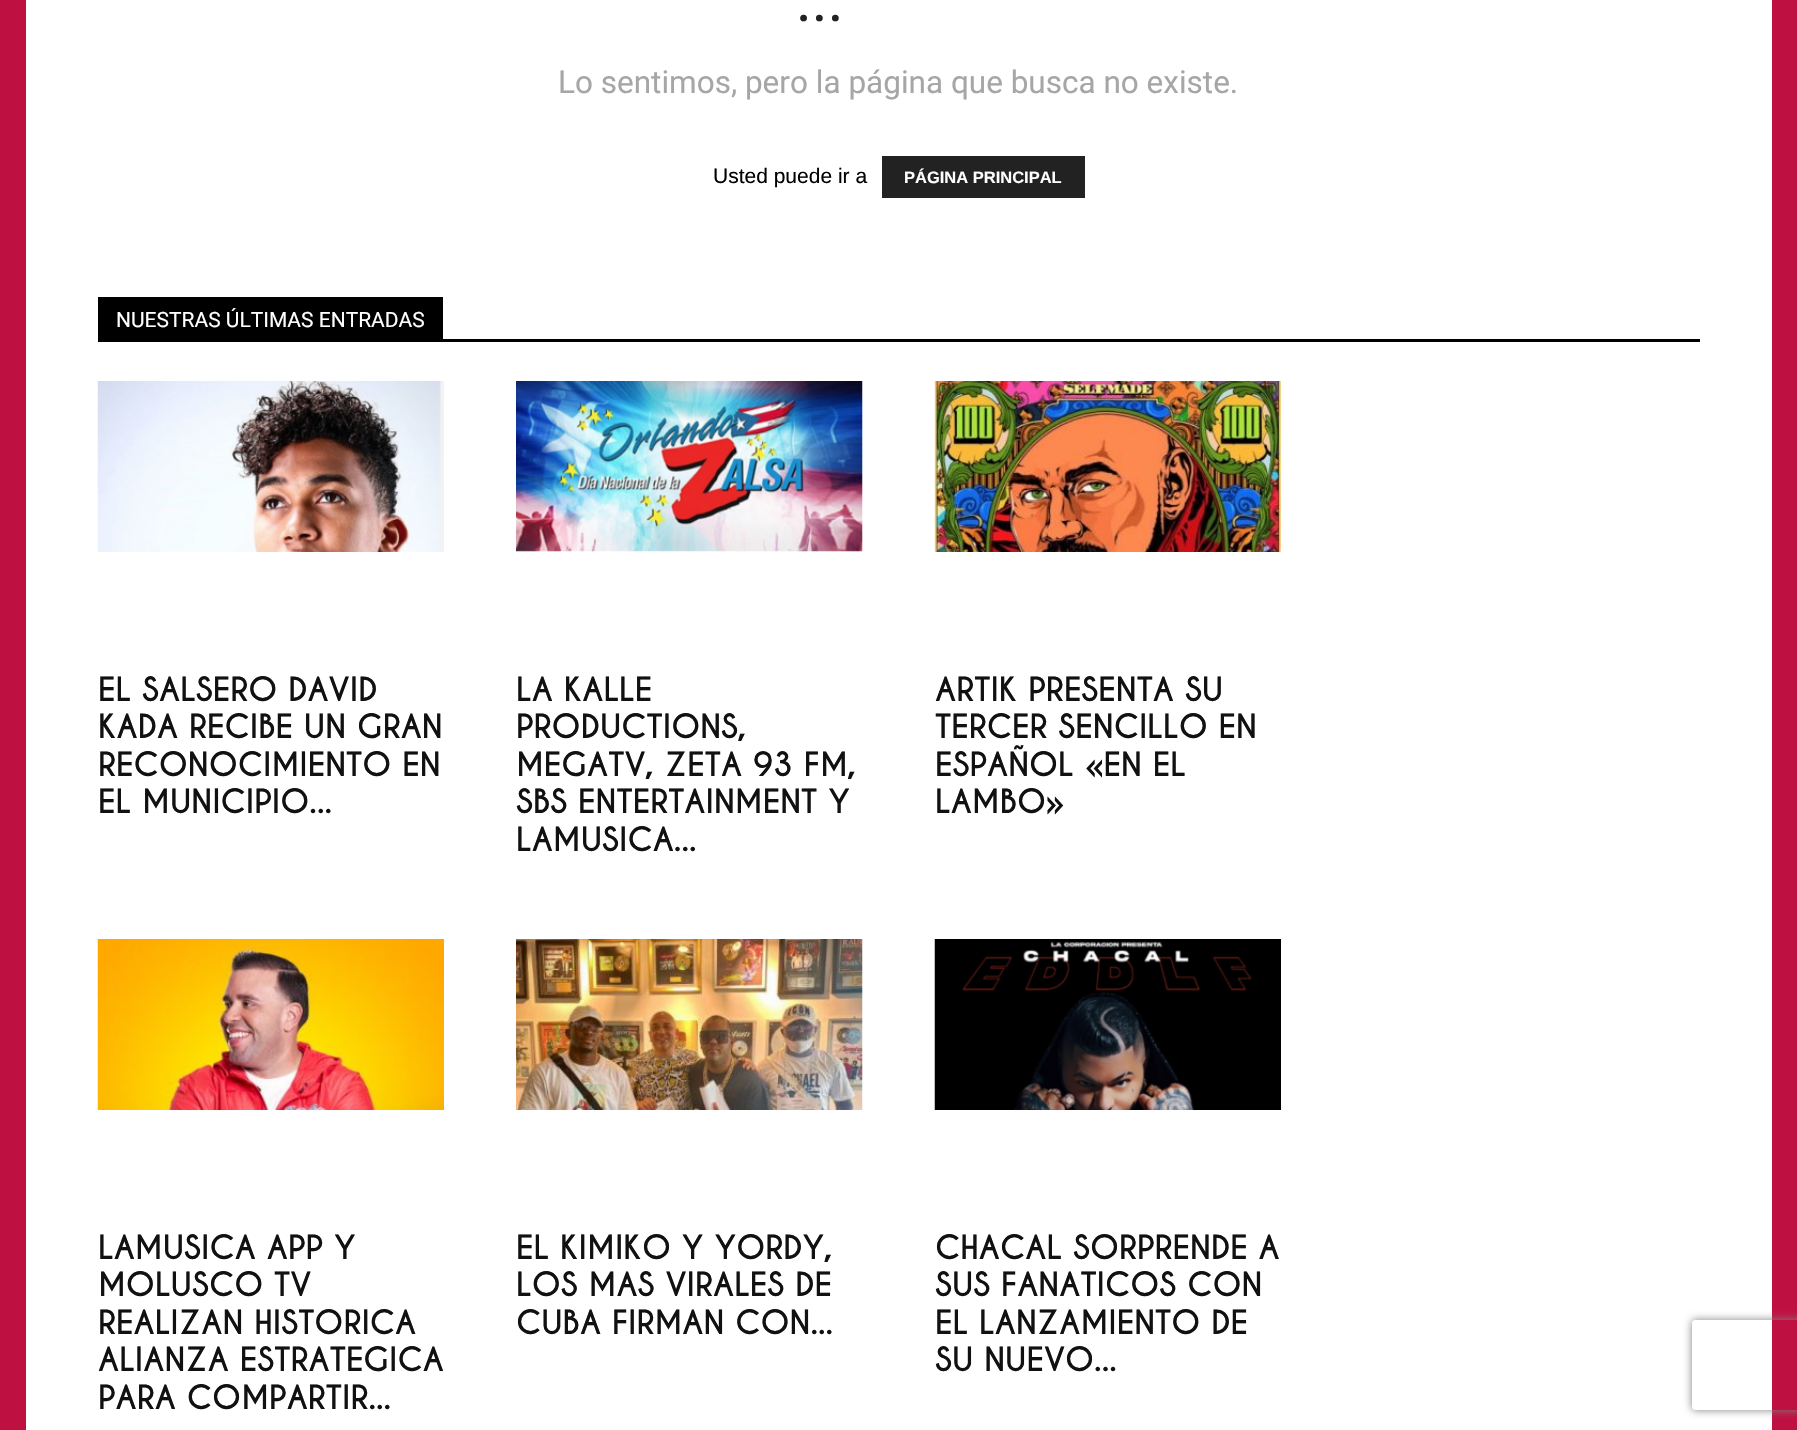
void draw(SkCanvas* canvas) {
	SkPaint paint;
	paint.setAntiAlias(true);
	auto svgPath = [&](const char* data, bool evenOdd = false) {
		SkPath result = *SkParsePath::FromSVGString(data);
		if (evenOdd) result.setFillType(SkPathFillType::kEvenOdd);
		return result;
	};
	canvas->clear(0xffbf1141);
	paint.setColor(0xffffffff);
	canvas->drawRect(SkRect::MakeXYWH(26, 0, 1746, 1430), paint);
	SkFont f1(fontMgr->matchFamilyStyle("Roboto", SkFontStyle::Normal()), 60);
	f1.setSubpixel(true);
	paint.setColor(0xff222222);
	canvas->drawString("...", 796, 21, f1, paint);
	SkFont f2(fontMgr->matchFamilyStyle("Roboto", SkFontStyle::Normal()), 31.5);
	f2.setSubpixel(true);
	paint.setColor(0xffa6a6a6);
	canvas->drawString("Lo sentimos, pero la página que busca no existe.", 558, 93, f2, paint);
	SkFont f3(fontMgr->matchFamilyStyle("Liberation Sans", SkFontStyle::Normal()), 21);
	f3.setSubpixel(true);
	paint.setColor(0xff000000);
	canvas->drawString("Usted puede ir a", 713, 183, f3, paint);
	paint.setColor(0xff222222);
	canvas->drawRect(SkRect::MakeXYWH(882, 156, 203, 42), paint);
	SkFont f4(fontMgr->matchFamilyStyle("Liberation Sans", SkFontStyle::Bold()), 16.5);
	f4.setSubpixel(true);
	paint.setColor(0xffffffff);
	canvas->drawString("PÁGINA PRINCIPAL", 904, 183, f4, paint);
	paint.setColor(0xff000000);
	canvas->drawRect(SkRect::MakeXYWH(98, 339, 1602, 3), paint);
	canvas->drawRect(SkRect::MakeXYWH(98, 297, 345, 42), paint);
	SkFont f5(fontMgr->matchFamilyStyle("Roboto", SkFontStyle::Normal()), 21);
	f5.setSubpixel(true);
	paint.setColor(0xffffffff);
	canvas->drawString("NUESTRAS ÚLTIMAS ENTRADAS", 116, 327, f5, paint);
	canvas->drawImageRect(SkImages::DeferredFromEncodedData(SkData::MakeFromFileName("img1.png")), SkRect::MakeXYWH(97, 381, 347, 171), SkSamplingOptions());
	SkFont f6(fontMgr->matchFamilyStyle("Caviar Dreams", SkFontStyle::Bold()), 31.5);
	f6.setSubpixel(true);
	paint.setColor(0xff111111);
	canvas->drawString("EL SALSERO DAVID", 98, 701, f6, paint);
	canvas->drawString("KADA RECIBE UN GRAN", 98, 738, f6, paint);
	canvas->drawString("RECONOCIMIENTO EN", 98, 776, f6, paint);
	canvas->drawString("EL MUNICIPIO...", 98, 813, f6, paint);
	canvas->drawImageRect(SkImages::DeferredFromEncodedData(SkData::MakeFromFileName("img2.png")), SkRect::MakeXYWH(516, 381, 347, 171), SkSamplingOptions());
	canvas->drawString("LA KALLE", 516, 701, f6, paint);
	canvas->drawString("PRODUCTIONS,", 516, 738, f6, paint);
	canvas->drawString("MEGATV, ZETA 93 FM,", 516, 776, f6, paint);
	canvas->drawString("SBS ENTERTAINMENT Y", 516, 813, f6, paint);
	canvas->drawString("LAMUSICA...", 516, 851, f6, paint);
	canvas->drawImageRect(SkImages::DeferredFromEncodedData(SkData::MakeFromFileName("img3.png")), SkRect::MakeXYWH(934, 381, 347, 171), SkSamplingOptions());
	canvas->drawString("ARTIK PRESENTA SU", 935, 701, f6, paint);
	canvas->drawString("TERCER SENCILLO EN", 935, 738, f6, paint);
	canvas->drawString("ESPAÑOL «EN EL", 935, 776, f6, paint);
	canvas->drawString("LAMBO»", 935, 813, f6, paint);
	canvas->drawImageRect(SkImages::DeferredFromEncodedData(SkData::MakeFromFileName("img4.png")), SkRect::MakeXYWH(97, 939, 347, 171), SkSamplingOptions());
	canvas->drawString("LAMUSICA APP Y", 98, 1259, f6, paint);
	canvas->drawString("MOLUSCO TV", 98, 1296, f6, paint);
	canvas->drawString("REALIZAN HISTORICA", 98, 1334, f6, paint);
	canvas->drawString("ALIANZA ESTRATEGICA", 98, 1371, f6, paint);
	canvas->drawString("PARA COMPARTIR...", 98, 1409, f6, paint);
	canvas->drawImageRect(SkImages::DeferredFromEncodedData(SkData::MakeFromFileName("img5.png")), SkRect::MakeXYWH(516, 939, 347, 171), SkSamplingOptions());
	canvas->drawString("EL KIMIKO Y YORDY,", 516, 1259, f6, paint);
	canvas->drawString("LOS MAS VIRALES DE", 516, 1296, f6, paint);
	canvas->drawString("CUBA FIRMAN CON...", 516, 1334, f6, paint);
	canvas->drawImageRect(SkImages::DeferredFromEncodedData(SkData::MakeFromFileName("img6.png")), SkRect::MakeXYWH(934, 939, 347, 171), SkSamplingOptions());
	canvas->drawString("CHACAL SORPRENDE A", 935, 1259, f6, paint);
	canvas->drawString("SUS FANATICOS CON", 935, 1296, f6, paint);
	canvas->drawString("EL LANZAMIENTO DE", 935, 1334, f6, paint);
	canvas->drawString("SU NUEVO...", 935, 1371, f6, paint);
	canvas->save();
	canvas->clipPath(svgPath("M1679 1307H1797V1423H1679ZM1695 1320H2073C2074.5 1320 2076 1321.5 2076 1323V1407C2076 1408.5 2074.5 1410 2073 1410H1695C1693.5 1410 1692 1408.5 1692 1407V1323C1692 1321.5 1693.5 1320 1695 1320Z", true), true);
	paint.setColor(0xff808080);
	paint.setMaskFilter(SkMaskFilter::MakeBlur(kNormal_SkBlurStyle, 4));
	canvas->drawRoundRect(SkRect::MakeXYWH(1692, 1320, 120, 90), 3, 3, paint);
	paint.setMaskFilter(nullptr);
	canvas->restore();
}
